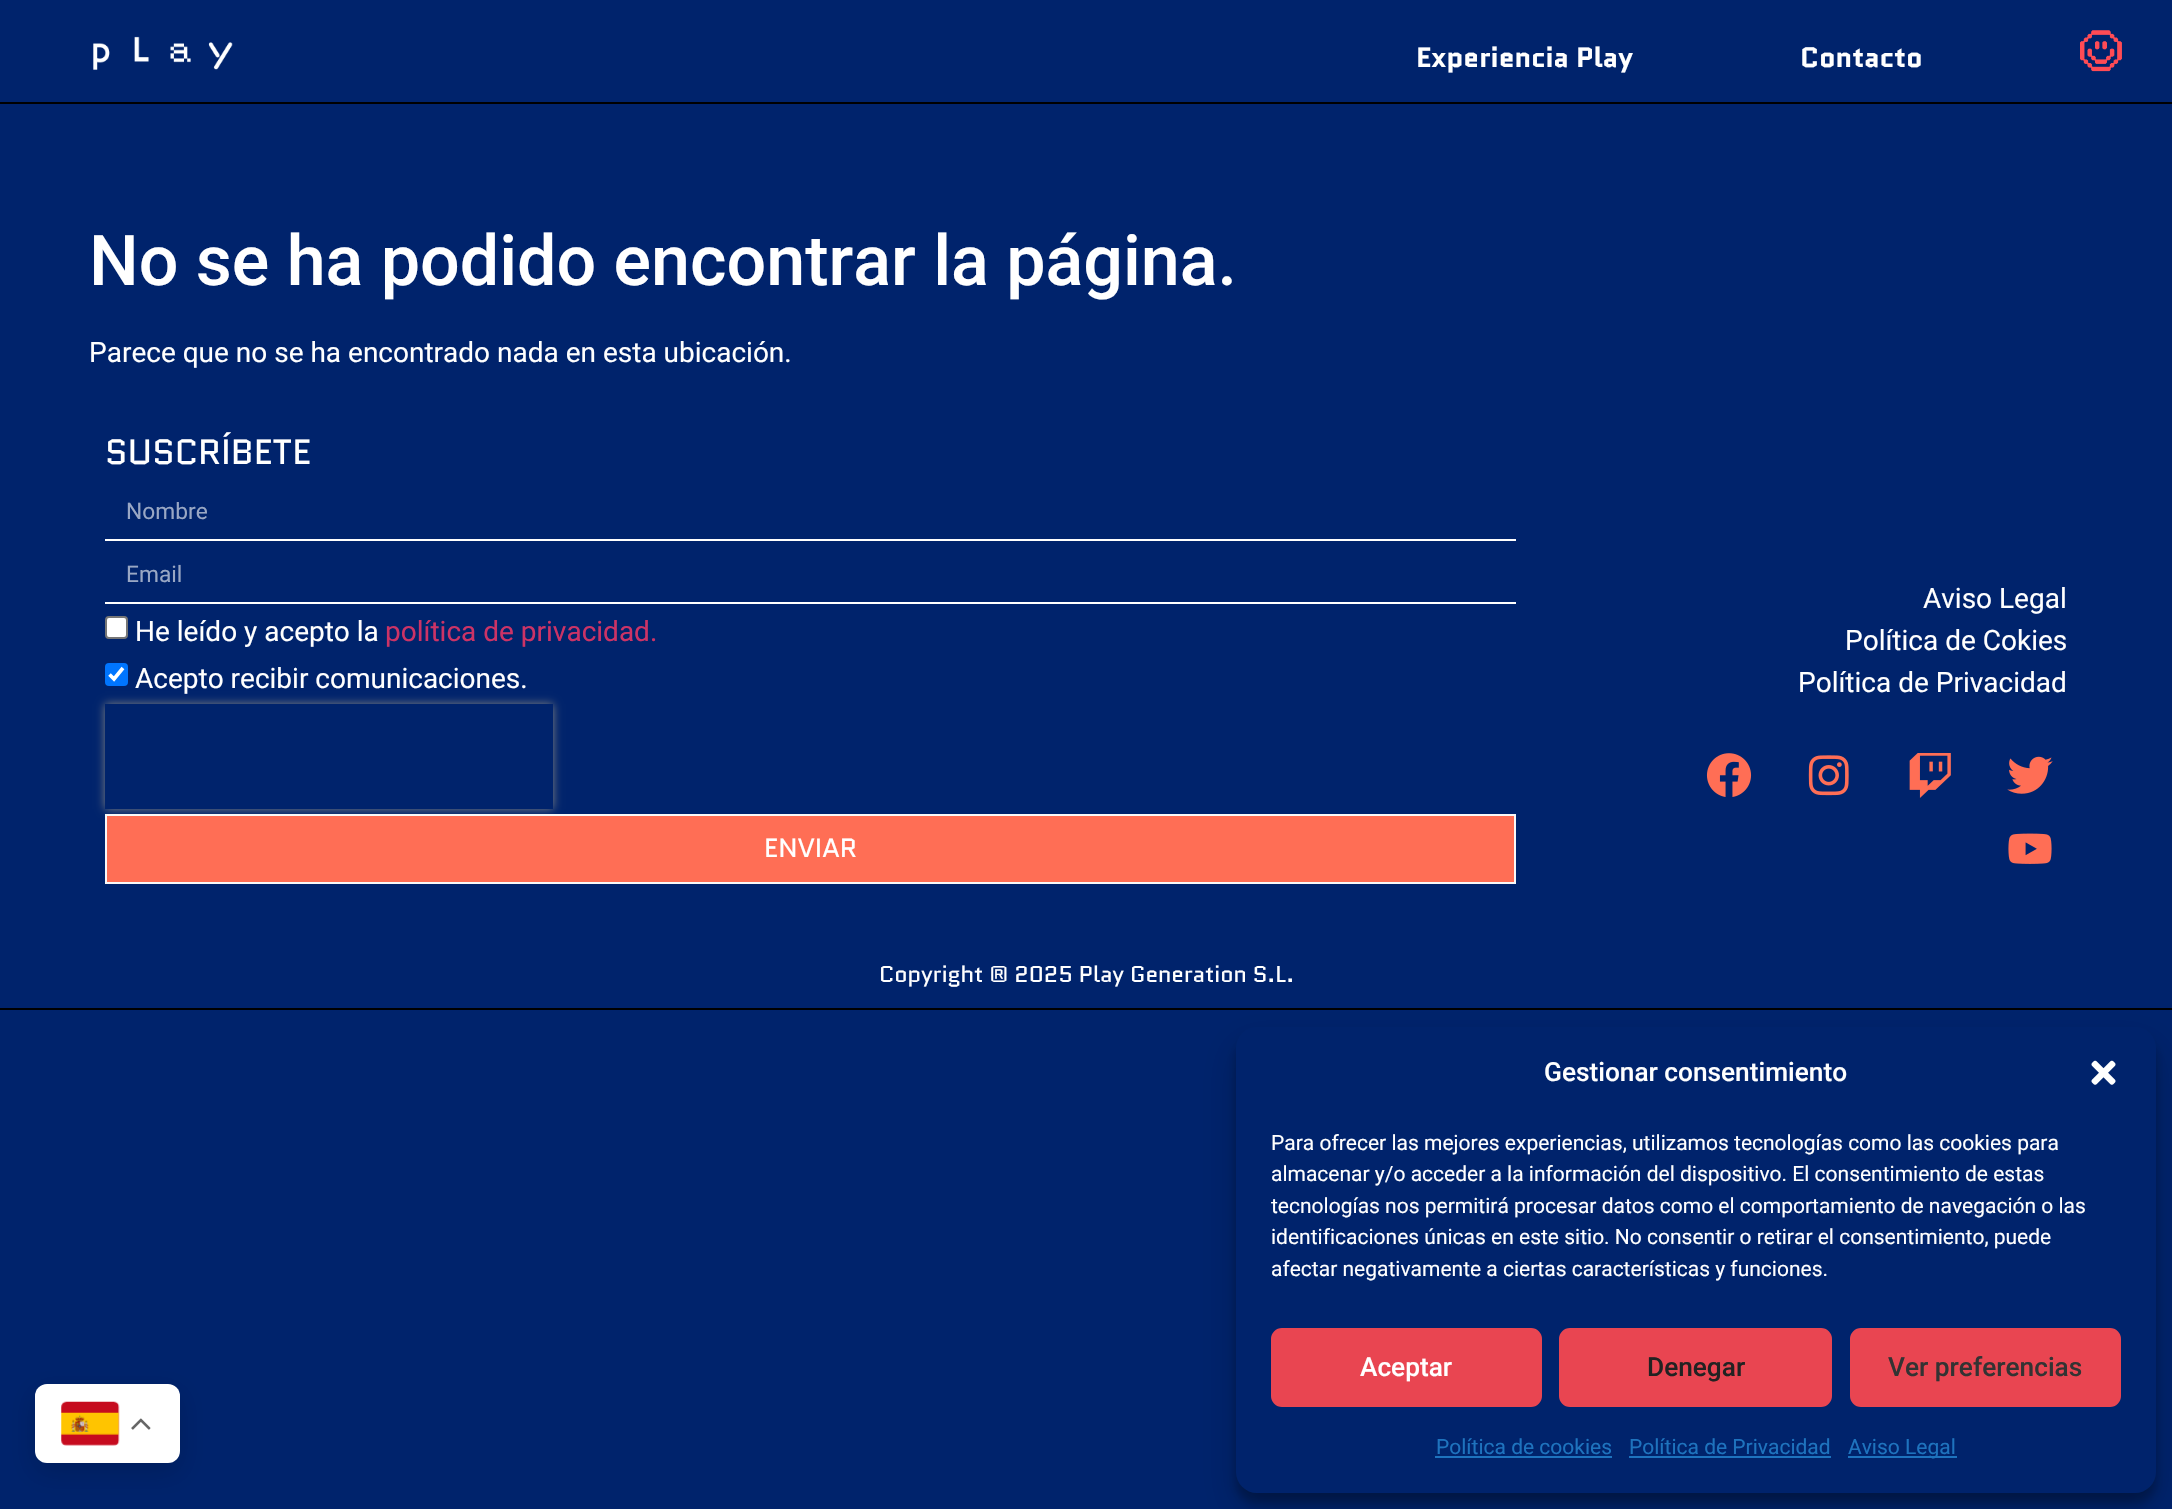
void draw(SkCanvas* canvas) {
	SkPaint paint;
	paint.setAntiAlias(true);
	auto svgPath = [&](const char* data, bool evenOdd = false) {
		SkPath result = *SkParsePath::FromSVGString(data);
		if (evenOdd) result.setFillType(SkPathFillType::kEvenOdd);
		return result;
	};
	canvas->clear(0xff00236c);
	paint.setColor(0xff000000);
	canvas->drawRect(SkRect::MakeXYWH(0, 102, 2172, 2), paint);
	canvas->drawImageRect(SkImages::DeferredFromEncodedData(SkData::MakeFromFileName("img1.png")), SkRect::MakeXYWH(93, 36, 140, 34), SkSamplingOptions());
	SkFont f1(fontMgr->matchFamilyStyle("Quantico", SkFontStyle::Bold()), 28);
	f1.setSubpixel(true);
	paint.setColor(0xffffffff);
	canvas->drawString("Experiencia Play", 1416, 67, f1, paint);
	canvas->drawString("Contacto", 1800, 67, f1, paint);
	canvas->drawImageRect(SkImages::DeferredFromEncodedData(SkData::MakeFromFileName("img2.png")), SkRect::MakeXYWH(2080, 30, 42, 42), SkSamplingOptions());
	SkFont f2(fontMgr->matchFamilyStyle("Roboto", SkFontStyle(500, SkFontStyle::kNormal_Width, SkFontStyle::kUpright_Slant)), 70);
	f2.setSubpixel(true);
	canvas->drawString("No se ha podido encontrar la página.", 89, 285, f2, paint);
	SkFont f3(fontMgr->matchFamilyStyle("Roboto", SkFontStyle::Normal()), 28);
	f3.setSubpixel(true);
	canvas->drawString("Parece que no se ha encontrado nada en esta ubicación.", 89, 362, f3, paint);
	SkFont f4(fontMgr->matchFamilyStyle("Quantico", SkFontStyle::Normal()), 35);
	f4.setSubpixel(true);
	canvas->drawString("SUSCRÍBETE", 105, 464, f4, paint);
	canvas->drawRect(SkRect::MakeXYWH(105, 539, 1411, 2), paint);
	SkFont f5(fontMgr->matchFamilyStyle("Roboto", SkFontStyle::Normal()), 22.75);
	f5.setSubpixel(true);
	paint.setColor(0xff99a7c4);
	canvas->drawString("Nombre", 126, 519, f5, paint);
	paint.setColor(0xffffffff);
	canvas->drawRect(SkRect::MakeXYWH(105, 602, 1411, 2), paint);
	paint.setColor(0xff99a7c4);
	canvas->drawString("Email", 126, 582, f5, paint);
	paint.setColor(0xffffffff);
	canvas->drawRoundRect(SkRect::MakeXYWH(106, 617, 21, 21), 3, 3, paint);
	paint.setStroke(true);
	paint.setStrokeWidth(2);
	paint.setColor(0xff767676);
	canvas->drawRoundRect(SkRect::MakeXYWH(106, 617, 21, 21), 3, 3, paint);
	paint.setStroke(false);
	paint.setColor(0xffffffff);
	canvas->drawString("He leído y acepto la", 135, 641, f3, paint);
	paint.setColor(0xffcc3366);
	canvas->drawString("política de privacidad.", 385, 641, f3, paint);
	paint.setColor(0xff0075ff);
	canvas->drawRoundRect(SkRect::MakeXYWH(105, 663, 23, 23), 4, 4, paint);
	paint.setStroke(true);
	paint.setStrokeWidth(3.6);
	paint.setColor(0xffffffff);
	canvas->drawPath(svgPath("M109.5 674.5L114 679L123 668"), paint);
	paint.setStroke(false);
	canvas->drawString("Acepto recibir comunicaciones.", 135, 688, f3, paint);
	canvas->save();
	canvas->clipPath(svgPath("M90 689H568V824H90ZM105 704H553V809H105Z", true), true);
	paint.setColor(0xff808080);
	paint.setMaskFilter(SkMaskFilter::MakeBlur(kNormal_SkBlurStyle, 4.5));
	canvas->drawRect(SkRect::MakeXYWH(105, 704, 448, 105), paint);
	paint.setMaskFilter(nullptr);
	canvas->restore();
	paint.setColor(0xffff6e55);
	canvas->drawRect(SkRect::MakeXYWH(106, 815, 1409, 68), paint);
	paint.setStroke(true);
	paint.setStrokeWidth(2);
	paint.setColor(0xfff9f9f9);
	canvas->drawRect(SkRect::MakeXYWH(106, 815, 1409, 68), paint);
	SkFont f6(fontMgr->matchFamilyStyle("Quantico", SkFontStyle::Normal()), 26.25);
	f6.setSubpixel(true);
	paint.setStroke(false);
	paint.setColor(0xffffffff);
	canvas->drawString("ENVIAR", 764, 857, f6, paint);
	canvas->drawString("Aviso Legal", 1923, 608, f3, paint);
	canvas->drawString("Política de Cokies", 1845, 650, f3, paint);
	canvas->drawString("Política de Privacidad", 1798, 692, f3, paint);
	canvas->drawImageRect(SkImages::DeferredFromEncodedData(SkData::MakeFromFileName("img3.png")), SkRect::MakeXYWH(1706, 753, 46, 44), SkSamplingOptions());
	canvas->drawImageRect(SkImages::DeferredFromEncodedData(SkData::MakeFromFileName("img4.png")), SkRect::MakeXYWH(1808, 755, 41, 41), SkSamplingOptions());
	canvas->drawImageRect(SkImages::DeferredFromEncodedData(SkData::MakeFromFileName("img5.png")), SkRect::MakeXYWH(1909, 753, 42, 45), SkSamplingOptions());
	canvas->drawImageRect(SkImages::DeferredFromEncodedData(SkData::MakeFromFileName("img6.png")), SkRect::MakeXYWH(2007, 756, 46, 38), SkSamplingOptions());
	canvas->drawImageRect(SkImages::DeferredFromEncodedData(SkData::MakeFromFileName("img7.png")), SkRect::MakeXYWH(2008, 833, 44, 31), SkSamplingOptions());
	paint.setColor(0xff000000);
	canvas->drawRect(SkRect::MakeXYWH(0, 1008, 2172, 2), paint);
	SkFont f7(fontMgr->matchFamilyStyle("Quantico", SkFontStyle::Normal()), 22.75);
	f7.setSubpixel(true);
	paint.setColor(0xffffffff);
	canvas->drawString("Copyright ® 2025 Play Generation S.L.", 879, 982, f7, paint);
	paint.setColor(0x26000000);
	paint.setMaskFilter(SkMaskFilter::MakeBlur(kNormal_SkBlurStyle, 13));
	canvas->drawRoundRect(SkRect::MakeXYWH(35, 1393, 145, 79), 12, 12, paint);
	paint.setMaskFilter(nullptr);
	paint.setColor(0xffffffff);
	canvas->drawRoundRect(SkRect::MakeXYWH(35, 1384, 145, 79), 12, 12, paint);
	canvas->drawImageRect(SkImages::DeferredFromEncodedData(SkData::MakeFromFileName("img8.png")), SkRect::MakeXYWH(61, 1401, 59, 45), SkSamplingOptions());
	canvas->drawImageRect(SkImages::DeferredFromEncodedData(SkData::MakeFromFileName("img9.png")), SkRect::MakeXYWH(131, 1418, 20, 12), SkSamplingOptions());
	paint.setColor(0x3b000000);
	paint.setMaskFilter(SkMaskFilter::MakeBlur(kNormal_SkBlurStyle, 5));
	canvas->drawRoundRect(SkRect::MakeXYWH(1236, 1038, 920, 465), 21, 21, paint);
	paint.setMaskFilter(nullptr);
	paint.setColor(0x30000000);
	paint.setMaskFilter(SkMaskFilter::MakeBlur(kNormal_SkBlurStyle, 17.5));
	canvas->drawRoundRect(SkRect::MakeXYWH(1236, 1045, 920, 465), 21, 21, paint);
	paint.setMaskFilter(nullptr);
	paint.setColor(0xff00236c);
	canvas->drawRoundRect(SkRect::MakeXYWH(1236, 1027, 920, 466), 21, 21, paint);
	SkFont f8(fontMgr->matchFamilyStyle("Roboto", SkFontStyle(500, SkFontStyle::kNormal_Width, SkFontStyle::kUpright_Slant)), 26.25);
	f8.setSubpixel(true);
	paint.setColor(0xffffffff);
	canvas->drawString("Gestionar consentimiento", 1544, 1081, f8, paint);
	canvas->drawImageRect(SkImages::DeferredFromEncodedData(SkData::MakeFromFileName("img10.png")), SkRect::MakeXYWH(2091, 1060, 25, 25), SkSamplingOptions());
	SkFont f9(fontMgr->matchFamilyStyle("Roboto", SkFontStyle::Normal()), 21);
	f9.setSubpixel(true);
	canvas->drawString("Para ofrecer las mejores experiencias, utilizamos tecnologías como las cookies para", 1271, 1150, f9, paint);
	canvas->drawString("almacenar y/o acceder a la información del dispositivo. El consentimiento de estas", 1271, 1181, f9, paint);
	canvas->drawString("tecnologías nos permitirá procesar datos como el comportamiento de navegación o las", 1271, 1213, f9, paint);
	canvas->drawString("identificaciones únicas en este sitio. No consentir o retirar el consentimiento, puede", 1271, 1244, f9, paint);
	canvas->drawString("afectar negativamente a ciertas características y funciones.", 1271, 1276, f9, paint);
	paint.setColor(0xffe94551);
	canvas->drawRoundRect(SkRect::MakeXYWH(1272, 1329, 269, 77), 10, 10, paint);
	paint.setStroke(true);
	canvas->drawRoundRect(SkRect::MakeXYWH(1272, 1329, 269, 77), 10, 10, paint);
	paint.setStroke(false);
	paint.setColor(0xffffffff);
	canvas->drawString("Aceptar", 1360, 1376, f8, paint);
	paint.setColor(0xffe94551);
	canvas->drawRoundRect(SkRect::MakeXYWH(1560, 1329, 271, 77), 10, 10, paint);
	paint.setStroke(true);
	canvas->drawRoundRect(SkRect::MakeXYWH(1560, 1329, 271, 77), 10, 10, paint);
	paint.setStroke(false);
	paint.setColor(0xff222222);
	canvas->drawString("Denegar", 1647, 1376, f8, paint);
	paint.setColor(0xffe94551);
	canvas->drawRoundRect(SkRect::MakeXYWH(1851, 1329, 269, 77), 10, 10, paint);
	paint.setStroke(true);
	canvas->drawRoundRect(SkRect::MakeXYWH(1851, 1329, 269, 77), 10, 10, paint);
	paint.setStroke(false);
	paint.setColor(0xff333333);
	canvas->drawString("Ver preferencias", 1888, 1376, f8, paint);
	paint.setColor(0xff1e73be);
	canvas->drawString("Política de cookies", 1436, 1454, f9, paint);
	canvas->drawRect(SkRect::MakeXYWH(1435, 1456, 177, 2), paint);
	canvas->drawString("Política de Privacidad", 1629, 1454, f9, paint);
	canvas->drawRect(SkRect::MakeXYWH(1629, 1456, 202, 2), paint);
	canvas->drawRect(SkRect::MakeXYWH(1848, 1456, 109, 2), paint);
	canvas->drawString("Aviso Legal", 1848, 1454, f9, paint);
}
